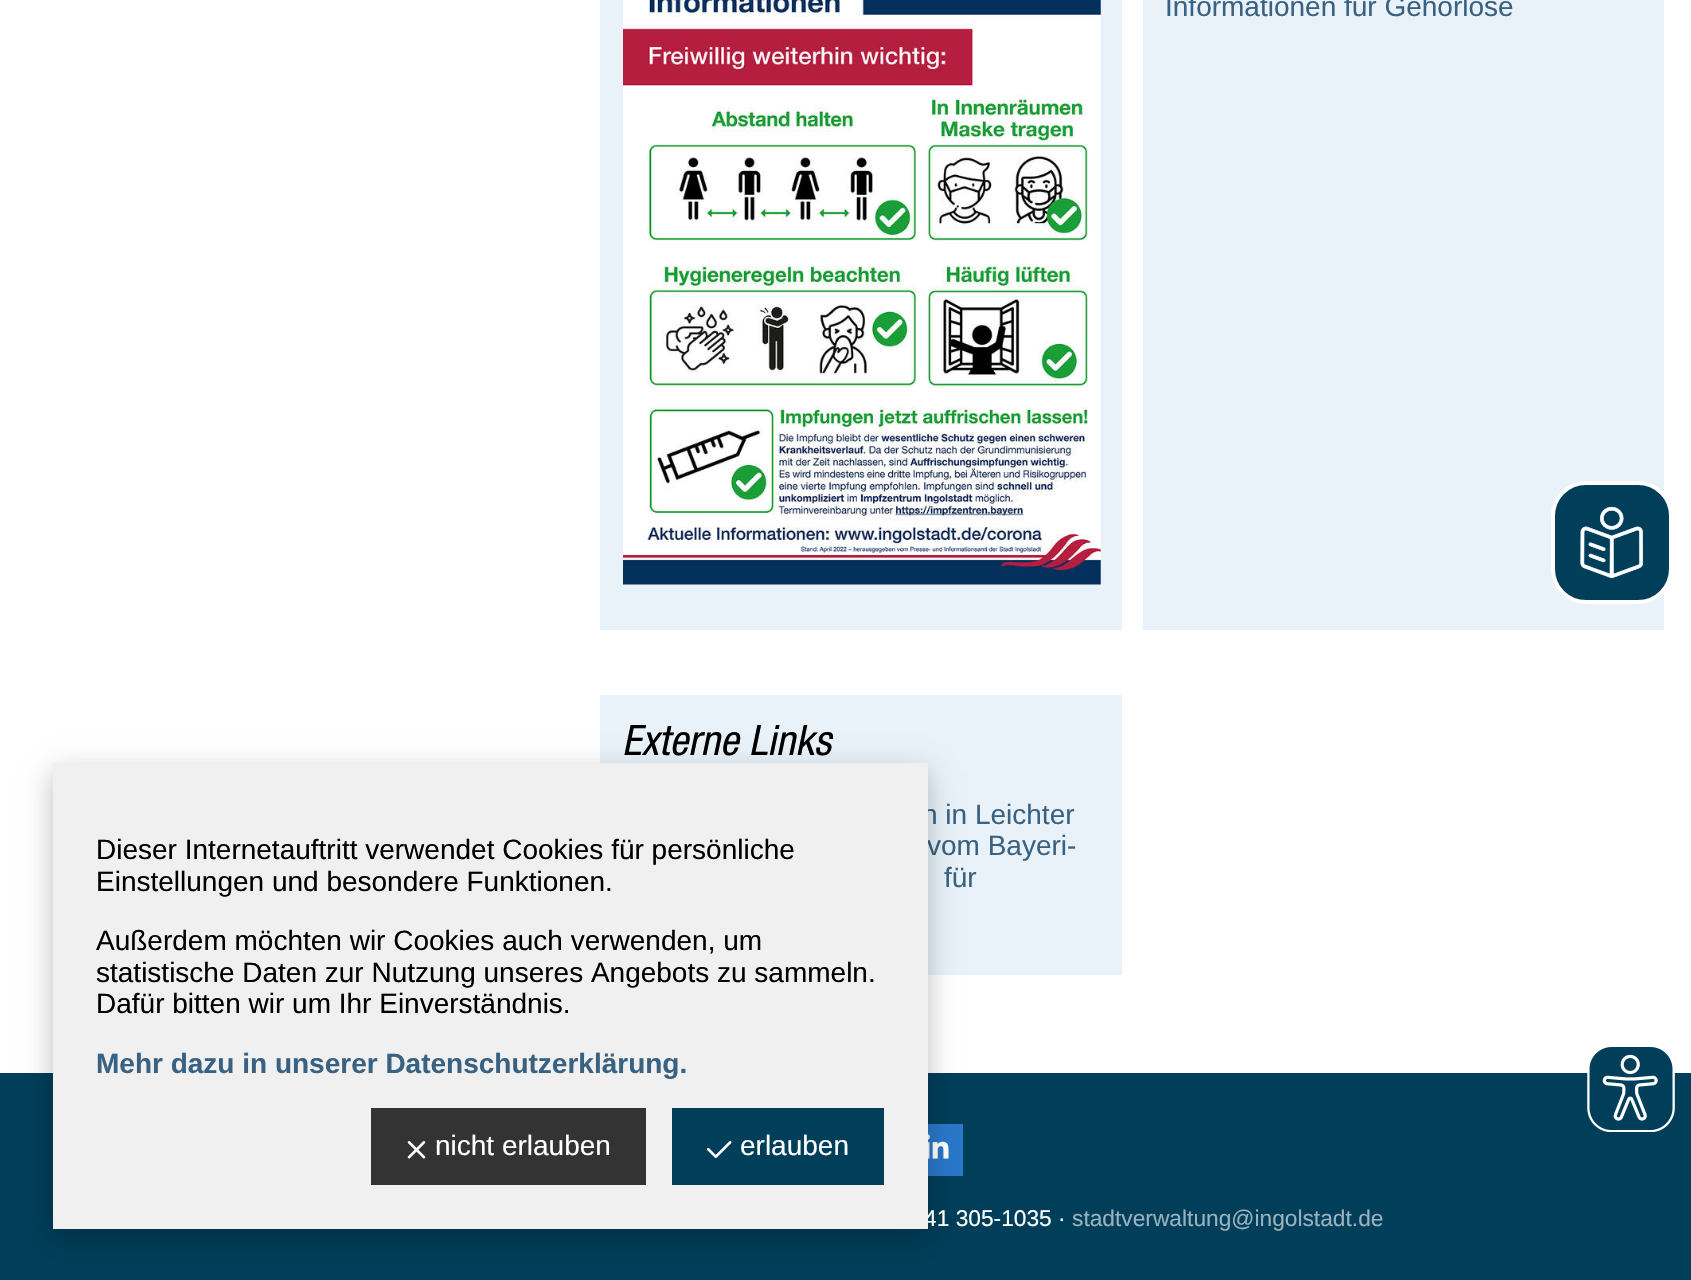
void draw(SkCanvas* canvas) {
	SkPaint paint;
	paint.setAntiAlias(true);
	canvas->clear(0xffffffff);
	paint.setColor(0xffe9f2f9);
	canvas->drawRect(SkRect::MakeXYWH(600, 0, 522, 630), paint);
	canvas->drawImageRect(SkImages::DeferredFromEncodedData(SkData::MakeFromFileName("img1.png")), SkRect::MakeXYWH(623, 0, 478, 585), SkSamplingOptions());
	canvas->drawRect(SkRect::MakeXYWH(1143, 0, 521, 630), paint);
	SkFont f1(fontMgr->matchFamilyStyle("Liberation Sans", SkFontStyle::Normal()), 28);
	f1.setSubpixel(true);
	paint.setColor(0xff396181);
	canvas->drawString("Informationen für Gehörlose", 1165, 16, f1, paint);
	paint.setColor(0xffe9f2f9);
	canvas->drawRect(SkRect::MakeXYWH(600, 695, 522, 280), paint);
	SkFont f2(fontMgr->matchFamilyStyle("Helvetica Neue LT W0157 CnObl", SkFontStyle::Normal()), 42);
	f2.setSubpixel(true);
	paint.setColor(0xff000000);
	canvas->drawString("Externe Links", 622, 755, f2, paint);
	paint.setColor(0xff396181);
	canvas->drawString("n in Leichter", 922, 824, f1, paint);
	canvas->drawString("vom Bayeri-", 927, 855, f1, paint);
	canvas->drawString("für", 944, 887, f1, paint);
	paint.setColor(0xff003e59);
	canvas->drawRoundRect(SkRect::MakeXYWH(1553, 483, 118, 119), 33, 33, paint);
	paint.setStroke(true);
	paint.setStrokeWidth(4);
	paint.setColor(0xffffffff);
	canvas->drawRoundRect(SkRect::MakeXYWH(1553, 483, 118, 119), 33, 33, paint);
	canvas->drawImageRect(SkImages::DeferredFromEncodedData(SkData::MakeFromFileName("img2.png")), SkRect::MakeXYWH(1580, 506, 64, 73), SkSamplingOptions());
	paint.setStroke(false);
	paint.setColor(0xff003e59);
	canvas->drawRect(SkRect::MakeXYWH(0, 1073, 1691, 207), paint);
	paint.setColor(0xff2977c9);
	canvas->drawRect(SkRect::MakeXYWH(928, 1124, 35, 52), paint);
	canvas->drawImageRect(SkImages::DeferredFromEncodedData(SkData::MakeFromFileName("img6.png")), SkRect::MakeXYWH(928, 1134, 21, 25), SkSamplingOptions());
	paint.setColor(0x40000000);
	paint.setMaskFilter(SkMaskFilter::MakeBlur(kNormal_SkBlurStyle, 13));
	canvas->drawRect(SkRect::MakeXYWH(53, 772, 875, 465), paint);
	paint.setMaskFilter(nullptr);
	SkFont f3(fontMgr->matchFamilyStyle("Liberation Sans", SkFontStyle::Normal()), 22.75);
	f3.setSubpixel(true);
	paint.setColor(0xffffffff);
	canvas->drawString("41 305-1035 ·", 924, 1226, f3, paint);
	paint.setColor(0xfff0f0f0);
	canvas->drawRect(SkRect::MakeXYWH(53, 763, 875, 466), paint);
	paint.setColor(0xff000000);
	canvas->drawString("Dieser Internetauftritt verwendet Cookies für persönliche", 96, 859, f1, paint);
	canvas->drawString("Einstellungen und besondere Funktionen.", 96, 891, f1, paint);
	canvas->drawString("Außerdem möchten wir Cookies auch verwenden, um", 96, 950, f1, paint);
	canvas->drawString("statistische Daten zur Nutzung unseres Angebots zu sammeln.", 96, 982, f1, paint);
	canvas->drawString("Dafür bitten wir um Ihr Einverständnis.", 96, 1013, f1, paint);
	SkFont f4(fontMgr->matchFamilyStyle("Liberation Sans", SkFontStyle::Bold()), 28);
	f4.setSubpixel(true);
	paint.setColor(0xff396181);
	canvas->drawString("Mehr dazu in unserer Datenschutzerklärung.", 96, 1073, f4, paint);
	paint.setColor(0xff333333);
	canvas->drawRect(SkRect::MakeXYWH(371, 1108, 275, 77), paint);
	canvas->drawImageRect(SkImages::DeferredFromEncodedData(SkData::MakeFromFileName("img3.png")), SkRect::MakeXYWH(407, 1141, 19, 18), SkSamplingOptions());
	paint.setColor(0xffffffff);
	canvas->drawString("nicht erlauben", 435, 1155, f1, paint);
	paint.setColor(0xff003e59);
	canvas->drawRect(SkRect::MakeXYWH(672, 1108, 212, 77), paint);
	canvas->drawImageRect(SkImages::DeferredFromEncodedData(SkData::MakeFromFileName("img4.png")), SkRect::MakeXYWH(707, 1141, 25, 17), SkSamplingOptions());
	paint.setColor(0xffffffff);
	canvas->drawString("erlauben", 740, 1155, f1, paint);
	canvas->drawImageRect(SkImages::DeferredFromEncodedData(SkData::MakeFromFileName("img5.png")), SkRect::MakeXYWH(1587, 1047, 88, 85), SkSamplingOptions());
	paint.setColor(0xff99b2bd);
	canvas->drawString("stadtverwaltung@ingolstadt.de", 1072, 1226, f3, paint);
}
